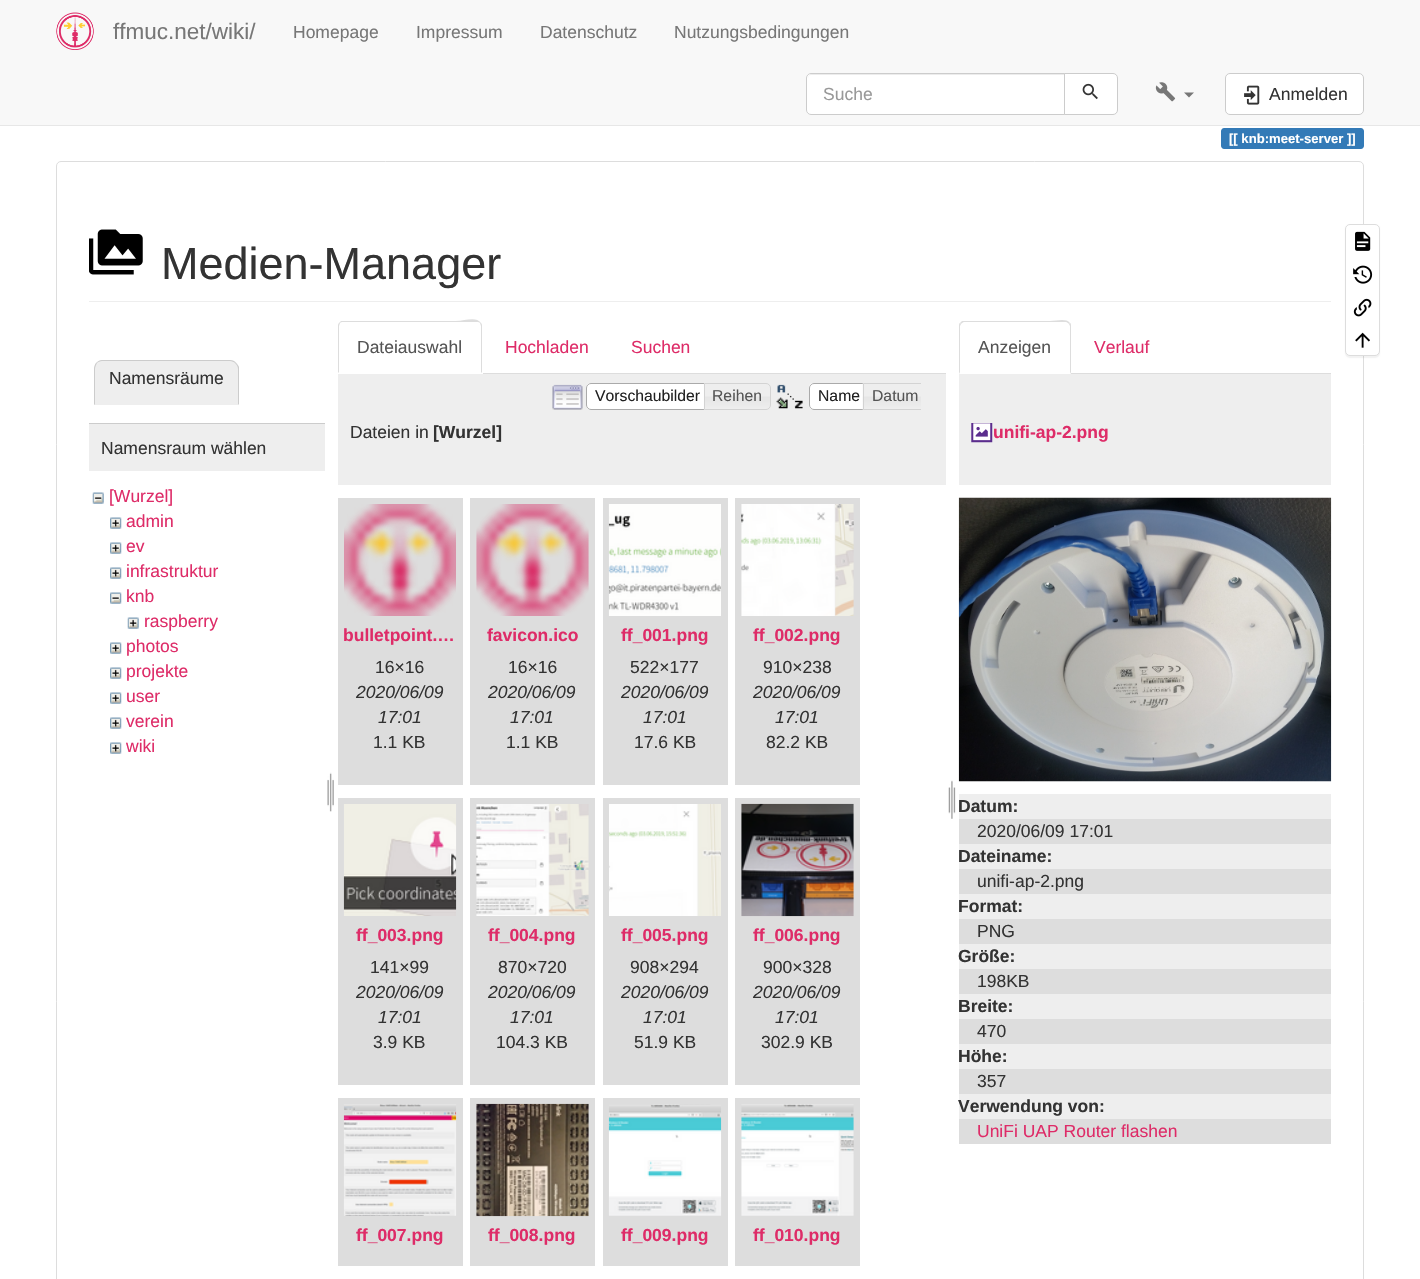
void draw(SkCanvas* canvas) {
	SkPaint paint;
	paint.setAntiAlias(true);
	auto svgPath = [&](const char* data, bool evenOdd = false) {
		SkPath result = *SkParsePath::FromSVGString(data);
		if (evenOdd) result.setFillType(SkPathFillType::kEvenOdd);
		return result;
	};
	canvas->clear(0xffffffff);
	paint.setColor(0xfff8f8f8);
	canvas->drawRect(SkRect::MakeXYWH(0, 0, 1420, 125), paint);
	paint.setColor(0xffe7e7e7);
	canvas->drawRect(SkRect::MakeXYWH(0, 125, 1420, 1), paint);
	canvas->drawImageRect(SkImages::DeferredFromEncodedData(SkData::MakeFromFileName("img1.png")), SkRect::MakeXYWH(56, 12, 38, 38), SkSamplingOptions());
	SkFont f1(fontMgr->matchFamilyStyle("Liberation Sans", SkFontStyle::Normal()), 22.5);
	f1.setSubpixel(true);
	paint.setColor(0xff777777);
	canvas->drawString("ffmuc.net/wiki/", 113, 39, f1, paint);
	SkFont f2(fontMgr->matchFamilyStyle("Liberation Sans", SkFontStyle::Normal()), 17.5);
	f2.setSubpixel(true);
	canvas->drawString("Homepage", 293, 38, f2, paint);
	canvas->drawString("Impressum", 416, 38, f2, paint);
	canvas->drawString("Datenschutz", 540, 38, f2, paint);
	canvas->drawString("Nutzungsbedingungen", 674, 38, f2, paint);
	paint.setColor(0xffffffff);
	canvas->drawPath(svgPath("M811 73H1065V115H811C808 115 806 113 806 110V78C806 75 808 73 811 73Z"), paint);
	paint.setColor(0xffececec);
	canvas->drawPath(svgPath("M811 75H1064V74H812C810 74 808 76 808 78V79C808 77 809 75 811 75Z"), paint);
	paint.setStroke(true);
	paint.setStrokeWidth(1);
	paint.setColor(0xffcccccc);
	canvas->drawPath(svgPath("M811 73.5H1064.5V114.5H811C808.5 114.5 806.5 112.5 806.5 110V78C806.5 75.5 808.5 73.5 811 73.5Z"), paint);
	paint.setStroke(false);
	paint.setColor(0xff999999);
	canvas->drawString("Suche", 823, 100, f2, paint);
	paint.setColor(0xffffffff);
	canvas->drawPath(svgPath("M1064.5 73.5H1113C1115.5 73.5 1117.5 75.5 1117.5 78V110C1117.5 112.5 1115.5 114.5 1113 114.5H1064.5Z"), paint);
	paint.setStroke(true);
	paint.setColor(0xffcccccc);
	canvas->drawPath(svgPath("M1064.5 73.5H1113C1115.5 73.5 1117.5 75.5 1117.5 78V110C1117.5 112.5 1115.5 114.5 1113 114.5H1064.5Z"), paint);
	canvas->drawImageRect(SkImages::DeferredFromEncodedData(SkData::MakeFromFileName("img2.png")), SkRect::MakeXYWH(1082, 83, 16, 17), SkSamplingOptions());
	canvas->drawImageRect(SkImages::DeferredFromEncodedData(SkData::MakeFromFileName("img3.png")), SkRect::MakeXYWH(1155, 82, 21, 20), SkSamplingOptions());
	paint.setStroke(false);
	paint.setColor(0xff777777);
	canvas->drawPath(svgPath("M1184 92.5H1194L1189 97.5Z"), paint);
	paint.setColor(0xffffffff);
	canvas->drawRoundRect(SkRect::MakeXYWH(1225.5, 73.5, 138, 41), 4.5, 4.5, paint);
	paint.setStroke(true);
	paint.setColor(0xffcccccc);
	canvas->drawRoundRect(SkRect::MakeXYWH(1225.5, 73.5, 138, 41), 4.5, 4.5, paint);
	canvas->drawImageRect(SkImages::DeferredFromEncodedData(SkData::MakeFromFileName("img4.png")), SkRect::MakeXYWH(1244, 85, 16, 20), SkSamplingOptions());
	paint.setStroke(false);
	paint.setColor(0xff333333);
	canvas->drawString("Anmelden", 1269, 100, f2, paint);
	paint.setColor(0xff337ab7);
	canvas->drawPath(svgPath("M1224 128H1241V149H1224C1222.5 149 1221 147.5 1221 146V131C1221 129.5 1222.5 128 1224 128Z"), paint);
	canvas->drawRect(SkRect::MakeXYWH(1241, 128, 103, 21), paint);
	canvas->drawPath(svgPath("M1344 128H1361C1362.5 128 1364 129.5 1364 131V146C1364 147.5 1362.5 149 1361 149H1344Z"), paint);
	SkFont f3(fontMgr->matchFamilyStyle("Liberation Sans", SkFontStyle::Bold()), 13.1);
	f3.setSubpixel(true);
	paint.setColor(0xffffffff);
	canvas->drawString("[[ knb:meet-server ]]", 1229, 143, f3, paint);
	paint.setStroke(true);
	paint.setColor(0xffdddddd);
	canvas->drawRoundRect(SkRect::MakeXYWH(56.5, 161.5, 1307, 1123), 4.5, 4.5, paint);
	paint.setStroke(false);
	paint.setColor(0xffeeeeee);
	canvas->drawRect(SkRect::MakeXYWH(89, 301, 1242, 1), paint);
	canvas->drawImageRect(SkImages::DeferredFromEncodedData(SkData::MakeFromFileName("img5.png")), SkRect::MakeXYWH(89, 229, 54, 46), SkSamplingOptions());
	SkFont f4(fontMgr->matchFamilyStyle("Liberation Sans", SkFontStyle::Normal()), 45);
	f4.setSubpixel(true);
	paint.setColor(0xff333333);
	canvas->drawString("Medien-Manager", 161, 279, f4, paint);
	paint.setColor(0xffeeeeee);
	canvas->drawPath(svgPath("M103 360H230C235 360 239 364 239 369V405H94V369C94 364 98 360 103 360Z"), paint);
	paint.setColor(0xffcccccc);
	canvas->drawPath(svgPath("M102 360C100 360 98 361 96 363H97C98 362 100 361 102 361H230C232 361 234 362 235 363H236C235 361 232 360 230 360Z"), paint);
	canvas->drawPath(svgPath("M239 367V405L238 404V369C238 367 237 365 235 363H236C237 364 238 365 239 367Z"), paint);
	paint.setColor(0xffeeeeee);
	canvas->drawPath(svgPath("M239 405L238 404H95L94 405Z"), paint);
	paint.setColor(0xffcccccc);
	canvas->drawPath(svgPath("M96 363C95 364 94 367 94 369V405L95 404V369C95 367 96 365 97 363Z"), paint);
	paint.setColor(0xff333333);
	canvas->drawString("Namensräume", 109, 384, f2, paint);
	paint.setColor(0xffeeeeee);
	canvas->drawRect(SkRect::MakeXYWH(89, 424, 236, 47), paint);
	paint.setColor(0xffcccccc);
	canvas->drawRect(SkRect::MakeXYWH(89, 423, 236, 1), paint);
	paint.setColor(0xff333333);
	canvas->drawString("Namensraum wählen", 101, 454, f2, paint);
	canvas->drawImageRect(SkImages::DeferredFromEncodedData(SkData::MakeFromFileName("img6.png")), SkRect::MakeXYWH(92, 492, 12, 12), SkSamplingOptions());
	paint.setColor(0xffde2c68);
	canvas->drawString("[Wurzel]", 109, 502, f2, paint);
	canvas->drawImageRect(SkImages::DeferredFromEncodedData(SkData::MakeFromFileName("img7.png")), SkRect::MakeXYWH(110, 517, 12, 12), SkSamplingOptions());
	canvas->drawString("admin", 126, 527, f2, paint);
	canvas->drawImageRect(SkImages::DeferredFromEncodedData(SkData::MakeFromFileName("img7.png")), SkRect::MakeXYWH(110, 542, 12, 12), SkSamplingOptions());
	canvas->drawString("ev", 126, 552, f2, paint);
	canvas->drawImageRect(SkImages::DeferredFromEncodedData(SkData::MakeFromFileName("img7.png")), SkRect::MakeXYWH(110, 567, 12, 12), SkSamplingOptions());
	canvas->drawString("infrastruktur", 126, 577, f2, paint);
	canvas->drawImageRect(SkImages::DeferredFromEncodedData(SkData::MakeFromFileName("img8.png")), SkRect::MakeXYWH(110, 592, 12, 12), SkSamplingOptions());
	canvas->drawString("knb", 126, 602, f2, paint);
	canvas->drawImageRect(SkImages::DeferredFromEncodedData(SkData::MakeFromFileName("img9.png")), SkRect::MakeXYWH(127, 617, 12, 12), SkSamplingOptions());
	canvas->drawString("raspberry", 144, 627, f2, paint);
	canvas->drawImageRect(SkImages::DeferredFromEncodedData(SkData::MakeFromFileName("img7.png")), SkRect::MakeXYWH(110, 642, 12, 12), SkSamplingOptions());
	canvas->drawString("photos", 126, 652, f2, paint);
	canvas->drawImageRect(SkImages::DeferredFromEncodedData(SkData::MakeFromFileName("img7.png")), SkRect::MakeXYWH(110, 667, 12, 12), SkSamplingOptions());
	canvas->drawString("projekte", 126, 677, f2, paint);
	canvas->drawImageRect(SkImages::DeferredFromEncodedData(SkData::MakeFromFileName("img7.png")), SkRect::MakeXYWH(110, 692, 12, 12), SkSamplingOptions());
	canvas->drawString("user", 126, 702, f2, paint);
	canvas->drawImageRect(SkImages::DeferredFromEncodedData(SkData::MakeFromFileName("img7.png")), SkRect::MakeXYWH(110, 717, 12, 12), SkSamplingOptions());
	canvas->drawString("verein", 126, 727, f2, paint);
	canvas->drawImageRect(SkImages::DeferredFromEncodedData(SkData::MakeFromFileName("img7.png")), SkRect::MakeXYWH(110, 742, 12, 12), SkSamplingOptions());
	canvas->drawString("wiki", 126, 752, f2, paint);
	canvas->drawImageRect(SkImages::DeferredFromEncodedData(SkData::MakeFromFileName("img10.png")), SkRect::MakeXYWH(327, 772, 7, 40), SkSamplingOptions());
	paint.setColor(0xffdddddd);
	canvas->drawRect(SkRect::MakeXYWH(483, 373, 463, 1), paint);
	canvas->drawPath(svgPath("M342 322C341 322 340 323 340 323H339L341 321H456C465 321 476 316 481 323H480C480 323 479 322 478 322Z"), paint);
	canvas->drawPath(svgPath("M481 323C482 324 482 325 482 326V373L481 372V326L480 323Z"), paint);
	canvas->drawPath(svgPath("M338 373V326C338 325 338 324 339 323H340L339 326V372Z"), paint);
	paint.setColor(0xff555555);
	canvas->drawString("Dateiauswahl", 357, 353, f2, paint);
	paint.setColor(0xffde2c68);
	canvas->drawString("Hochladen", 505, 353, f2, paint);
	canvas->drawString("Suchen", 631, 353, f2, paint);
	paint.setColor(0xffeeeeee);
	canvas->drawRect(SkRect::MakeXYWH(338, 374, 608, 111), paint);
	canvas->drawImageRect(SkImages::DeferredFromEncodedData(SkData::MakeFromFileName("img11.png")), SkRect::MakeXYWH(552, 384, 31, 26), SkSamplingOptions());
	paint.setColor(0xffffffff);
	canvas->drawPath(svgPath("M591 383H710V410H591C588 410 586 408 586 405V388C586 385 588 383 591 383Z"), paint);
	canvas->drawImageRect(SkImages::DeferredFromEncodedData(SkData::MakeFromFileName("img12.png")), SkRect::MakeXYWH(587, 383, 3, 2), SkSamplingOptions());
	paint.setStroke(true);
	paint.setColor(0xffaaaaaa);
	canvas->drawPath(svgPath("M591 383.5H709.5V409.5H591C588.5 409.5 586.5 407.5 586.5 405V388C586.5 385.5 588.5 383.5 591 383.5Z"), paint);
	SkFont f5(fontMgr->matchFamilyStyle("Liberation Sans", SkFontStyle::Normal()), 15.75);
	f5.setSubpixel(true);
	paint.setStroke(false);
	paint.setColor(0xff212121);
	canvas->drawString("Vorschaubilder", 595, 401, f5, paint);
	canvas->drawImageRect(SkImages::DeferredFromEncodedData(SkData::MakeFromFileName("img13.png")), SkRect::MakeXYWH(703, 383, 68, 27), SkSamplingOptions());
	paint.setStroke(true);
	paint.setColor(0xffd3d3d3);
	canvas->drawPath(svgPath("M704.5 383.5H766C768.5 383.5 770.5 385.5 770.5 388V405C770.5 407.5 768.5 409.5 766 409.5H704.5Z"), paint);
	paint.setStroke(false);
	paint.setColor(0xff555555);
	canvas->drawString("Reihen", 712, 401, f5, paint);
	canvas->drawImageRect(SkImages::DeferredFromEncodedData(SkData::MakeFromFileName("img14.png")), SkRect::MakeXYWH(776, 384, 27, 25), SkSamplingOptions());
	paint.setColor(0xffffffff);
	canvas->drawPath(svgPath("M814 383H869V410H814C811 410 809 408 809 405V388C809 385 811 383 814 383Z"), paint);
	canvas->drawImageRect(SkImages::DeferredFromEncodedData(SkData::MakeFromFileName("img15.png")), SkRect::MakeXYWH(809, 383, 4, 26), SkSamplingOptions());
	paint.setStroke(true);
	paint.setColor(0xffaaaaaa);
	canvas->drawPath(svgPath("M814 383.5H868.5V409.5H814C811.5 409.5 809.5 407.5 809.5 405V388C809.5 385.5 811.5 383.5 814 383.5Z"), paint);
	paint.setStroke(false);
	paint.setColor(0xff212121);
	canvas->drawString("Name", 818, 401, f5, paint);
	canvas->drawImageRect(SkImages::DeferredFromEncodedData(SkData::MakeFromFileName("img16.png")), SkRect::MakeXYWH(862, 383, 59, 27), SkSamplingOptions());
	canvas->save();
	canvas->clipRect(SkRect::MakeXYWH(543, 383, 378, 27));
	paint.setStroke(true);
	paint.setColor(0xffd3d3d3);
	canvas->drawPath(svgPath("M863.5 383.5H923C925.5 383.5 927.5 385.5 927.5 388V405C927.5 407.5 925.5 409.5 923 409.5H863.5Z"), paint);
	canvas->restore();
	paint.setStroke(false);
	paint.setColor(0xff555555);
	canvas->drawString("Datum", 872, 401, f5, paint);
	paint.setColor(0xff333333);
	canvas->drawString("Dateien in", 350, 438, f2, paint);
	SkFont f6(fontMgr->matchFamilyStyle("Liberation Sans", SkFontStyle::Bold()), 17.5);
	f6.setSubpixel(true);
	canvas->drawString("[Wurzel]", 433, 438, f6, paint);
	paint.setColor(0xffdddddd);
	canvas->drawRect(SkRect::MakeXYWH(338, 498, 125, 287), paint);
	canvas->drawImageRect(SkImages::DeferredFromEncodedData(SkData::MakeFromFileName("img17.png")), SkRect::MakeXYWH(344, 504, 112, 112), SkSamplingOptions());
	paint.setColor(0xffde2c68);
	canvas->drawString("bulletpoint.…", 343, 641, f6, paint);
	paint.setColor(0xff333333);
	canvas->drawString("16×16", 375, 673, f2, paint);
	SkFont f7(fontMgr->matchFamilyStyle("Liberation Sans", SkFontStyle::Italic()), 17.5);
	f7.setSubpixel(true);
	canvas->drawString("2020/06/09", 356, 698, f7, paint);
	canvas->drawString("17:01", 378, 723, f7, paint);
	canvas->drawString("1.1 KB", 373, 748, f2, paint);
	paint.setColor(0xffdddddd);
	canvas->drawRect(SkRect::MakeXYWH(470, 498, 125, 287), paint);
	canvas->drawImageRect(SkImages::DeferredFromEncodedData(SkData::MakeFromFileName("img18.png")), SkRect::MakeXYWH(476, 504, 113, 112), SkSamplingOptions());
	paint.setColor(0xffde2c68);
	canvas->drawString("favicon.ico", 487, 641, f6, paint);
	paint.setColor(0xff333333);
	canvas->drawString("16×16", 508, 673, f2, paint);
	canvas->drawString("2020/06/09", 488, 698, f7, paint);
	canvas->drawString("17:01", 510, 723, f7, paint);
	canvas->drawString("1.1 KB", 506, 748, f2, paint);
	paint.setColor(0xffdddddd);
	canvas->drawRect(SkRect::MakeXYWH(603, 498, 125, 287), paint);
	canvas->drawImageRect(SkImages::DeferredFromEncodedData(SkData::MakeFromFileName("img19.png")), SkRect::MakeXYWH(608, 504, 113, 112), SkSamplingOptions());
	paint.setColor(0xffde2c68);
	canvas->drawString("ff_001.png", 621, 641, f6, paint);
	paint.setColor(0xff333333);
	canvas->drawString("522×177", 630, 673, f2, paint);
	canvas->drawString("2020/06/09", 621, 698, f7, paint);
	canvas->drawString("17:01", 643, 723, f7, paint);
	canvas->drawString("17.6 KB", 634, 748, f2, paint);
	paint.setColor(0xffdddddd);
	canvas->drawRect(SkRect::MakeXYWH(735, 498, 125, 287), paint);
	canvas->drawImageRect(SkImages::DeferredFromEncodedData(SkData::MakeFromFileName("img20.png")), SkRect::MakeXYWH(741, 504, 113, 112), SkSamplingOptions());
	paint.setColor(0xffde2c68);
	canvas->drawString("ff_002.png", 753, 641, f6, paint);
	paint.setColor(0xff333333);
	canvas->drawString("910×238", 763, 673, f2, paint);
	canvas->drawString("2020/06/09", 753, 698, f7, paint);
	canvas->drawString("17:01", 775, 723, f7, paint);
	canvas->drawString("82.2 KB", 766, 748, f2, paint);
	paint.setColor(0xffdddddd);
	canvas->drawRect(SkRect::MakeXYWH(338, 798, 125, 287), paint);
	canvas->drawImageRect(SkImages::DeferredFromEncodedData(SkData::MakeFromFileName("img21.png")), SkRect::MakeXYWH(343, 804, 114, 112), SkSamplingOptions());
	paint.setColor(0xffde2c68);
	canvas->drawString("ff_003.png", 356, 941, f6, paint);
	paint.setColor(0xff333333);
	canvas->drawString("141×99", 370, 973, f2, paint);
	canvas->drawString("2020/06/09", 356, 998, f7, paint);
	canvas->drawString("17:01", 378, 1023, f7, paint);
	canvas->drawString("3.9 KB", 373, 1048, f2, paint);
	paint.setColor(0xffdddddd);
	canvas->drawRect(SkRect::MakeXYWH(470, 798, 125, 287), paint);
	canvas->drawImageRect(SkImages::DeferredFromEncodedData(SkData::MakeFromFileName("img22.png")), SkRect::MakeXYWH(476, 804, 113, 112), SkSamplingOptions());
	paint.setColor(0xffde2c68);
	canvas->drawString("ff_004.png", 488, 941, f6, paint);
	paint.setColor(0xff333333);
	canvas->drawString("870×720", 498, 973, f2, paint);
	canvas->drawString("2020/06/09", 488, 998, f7, paint);
	canvas->drawString("17:01", 510, 1023, f7, paint);
	canvas->drawString("104.3 KB", 496, 1048, f2, paint);
	paint.setColor(0xffdddddd);
	canvas->drawRect(SkRect::MakeXYWH(603, 798, 125, 287), paint);
	canvas->drawImageRect(SkImages::DeferredFromEncodedData(SkData::MakeFromFileName("img23.png")), SkRect::MakeXYWH(609, 804, 112, 112), SkSamplingOptions());
	paint.setColor(0xffde2c68);
	canvas->drawString("ff_005.png", 621, 941, f6, paint);
	paint.setColor(0xff333333);
	canvas->drawString("908×294", 630, 973, f2, paint);
	canvas->drawString("2020/06/09", 621, 998, f7, paint);
	canvas->drawString("17:01", 643, 1023, f7, paint);
	canvas->drawString("51.9 KB", 634, 1048, f2, paint);
	paint.setColor(0xffdddddd);
	canvas->drawRect(SkRect::MakeXYWH(735, 798, 125, 287), paint);
	canvas->drawImageRect(SkImages::DeferredFromEncodedData(SkData::MakeFromFileName("img24.png")), SkRect::MakeXYWH(741, 803, 113, 114), SkSamplingOptions());
	paint.setColor(0xffde2c68);
	canvas->drawString("ff_006.png", 753, 941, f6, paint);
	paint.setColor(0xff333333);
	canvas->drawString("900×328", 763, 973, f2, paint);
	canvas->drawString("2020/06/09", 753, 998, f7, paint);
	canvas->drawString("17:01", 775, 1023, f7, paint);
	canvas->drawString("302.9 KB", 761, 1048, f2, paint);
	paint.setColor(0xffdddddd);
	canvas->drawRect(SkRect::MakeXYWH(338, 1098, 125, 168), paint);
	canvas->drawImageRect(SkImages::DeferredFromEncodedData(SkData::MakeFromFileName("img25.png")), SkRect::MakeXYWH(343, 1104, 114, 112), SkSamplingOptions());
	paint.setColor(0xffde2c68);
	canvas->drawString("ff_007.png", 356, 1241, f6, paint);
	paint.setColor(0xffdddddd);
	canvas->drawRect(SkRect::MakeXYWH(470, 1098, 125, 168), paint);
	canvas->drawImageRect(SkImages::DeferredFromEncodedData(SkData::MakeFromFileName("img26.png")), SkRect::MakeXYWH(476, 1103, 113, 114), SkSamplingOptions());
	paint.setColor(0xffde2c68);
	canvas->drawString("ff_008.png", 488, 1241, f6, paint);
	paint.setColor(0xffdddddd);
	canvas->drawRect(SkRect::MakeXYWH(603, 1098, 125, 168), paint);
	canvas->drawImageRect(SkImages::DeferredFromEncodedData(SkData::MakeFromFileName("img27.png")), SkRect::MakeXYWH(608, 1104, 114, 112), SkSamplingOptions());
	paint.setColor(0xffde2c68);
	canvas->drawString("ff_009.png", 621, 1241, f6, paint);
	paint.setColor(0xffdddddd);
	canvas->drawRect(SkRect::MakeXYWH(735, 1098, 125, 168), paint);
	canvas->drawImageRect(SkImages::DeferredFromEncodedData(SkData::MakeFromFileName("img28.png")), SkRect::MakeXYWH(741, 1104, 113, 112), SkSamplingOptions());
	paint.setColor(0xffde2c68);
	canvas->drawString("ff_010.png", 753, 1241, f6, paint);
	canvas->drawImageRect(SkImages::DeferredFromEncodedData(SkData::MakeFromFileName("img29.png")), SkRect::MakeXYWH(948, 780, 8, 39), SkSamplingOptions());
	paint.setColor(0xffdddddd);
	canvas->drawRect(SkRect::MakeXYWH(1071, 373, 260, 1), paint);
	canvas->drawPath(svgPath("M964 322C963 322 962 323 961 324L960 323L962 321H1050C1057 321 1066 318 1070 323L1069 324C1068 323 1067 322 1066 322Z"), paint);
	canvas->drawPath(svgPath("M1070 323C1071 323 1071 325 1071 326V374L1070 372V326L1069 324Z"), paint);
	canvas->drawPath(svgPath("M959 374V326C959 325 959 323 960 323L961 324L960 326V372Z"), paint);
	paint.setColor(0xff555555);
	canvas->drawString("Anzeigen", 978, 353, f2, paint);
	paint.setColor(0xffde2c68);
	canvas->drawString("Verlauf", 1094, 353, f2, paint);
	paint.setColor(0xffeeeeee);
	canvas->drawRect(SkRect::MakeXYWH(959, 374, 372, 111), paint);
	canvas->drawImageRect(SkImages::DeferredFromEncodedData(SkData::MakeFromFileName("img30.png")), SkRect::MakeXYWH(971, 423, 22, 20), SkSamplingOptions());
	paint.setColor(0xffde2c68);
	canvas->drawString("unifi-ap-2.png", 993, 438, f6, paint);
	canvas->drawImageRect(SkImages::DeferredFromEncodedData(SkData::MakeFromFileName("img31.png")), SkRect::MakeXYWH(958, 497, 374, 285), SkSamplingOptions());
	paint.setColor(0xffeeeeee);
	canvas->drawRect(SkRect::MakeXYWH(959, 794, 372, 25), paint);
	paint.setColor(0xff333333);
	canvas->drawString("Datum:", 958, 812, f6, paint);
	paint.setColor(0xffdddddd);
	canvas->drawRect(SkRect::MakeXYWH(959, 819, 372, 25), paint);
	paint.setColor(0xff333333);
	canvas->drawString("2020/06/09 17:01", 977, 837, f2, paint);
	paint.setColor(0xffeeeeee);
	canvas->drawRect(SkRect::MakeXYWH(959, 844, 372, 25), paint);
	paint.setColor(0xff333333);
	canvas->drawString("Dateiname:", 958, 862, f6, paint);
	paint.setColor(0xffdddddd);
	canvas->drawRect(SkRect::MakeXYWH(959, 869, 372, 25), paint);
	paint.setColor(0xff333333);
	canvas->drawString("unifi-ap-2.png", 977, 887, f2, paint);
	paint.setColor(0xffeeeeee);
	canvas->drawRect(SkRect::MakeXYWH(959, 894, 372, 25), paint);
	paint.setColor(0xff333333);
	canvas->drawString("Format:", 958, 912, f6, paint);
	paint.setColor(0xffdddddd);
	canvas->drawRect(SkRect::MakeXYWH(959, 919, 372, 25), paint);
	paint.setColor(0xff333333);
	canvas->drawString("PNG", 977, 937, f2, paint);
	paint.setColor(0xffeeeeee);
	canvas->drawRect(SkRect::MakeXYWH(959, 944, 372, 25), paint);
	paint.setColor(0xff333333);
	canvas->drawString("Größe:", 958, 962, f6, paint);
	paint.setColor(0xffdddddd);
	canvas->drawRect(SkRect::MakeXYWH(959, 969, 372, 25), paint);
	paint.setColor(0xff333333);
	canvas->drawString("198KB", 977, 987, f2, paint);
	paint.setColor(0xffeeeeee);
	canvas->drawRect(SkRect::MakeXYWH(959, 994, 372, 25), paint);
	paint.setColor(0xff333333);
	canvas->drawString("Breite:", 958, 1012, f6, paint);
	paint.setColor(0xffdddddd);
	canvas->drawRect(SkRect::MakeXYWH(959, 1019, 372, 25), paint);
	paint.setColor(0xff333333);
	canvas->drawString("470", 977, 1037, f2, paint);
	paint.setColor(0xffeeeeee);
	canvas->drawRect(SkRect::MakeXYWH(959, 1044, 372, 25), paint);
	paint.setColor(0xff333333);
	canvas->drawString("Höhe:", 958, 1062, f6, paint);
	paint.setColor(0xffdddddd);
	canvas->drawRect(SkRect::MakeXYWH(959, 1069, 372, 25), paint);
	paint.setColor(0xff333333);
	canvas->drawString("357", 977, 1087, f2, paint);
	paint.setColor(0xffeeeeee);
	canvas->drawRect(SkRect::MakeXYWH(959, 1094, 372, 25), paint);
	paint.setColor(0xff333333);
	canvas->drawString("Verwendung von:", 958, 1112, f6, paint);
	paint.setColor(0xffdddddd);
	canvas->drawRect(SkRect::MakeXYWH(959, 1119, 372, 25), paint);
	paint.setColor(0xffde2c68);
	canvas->drawString("UniFi UAP Router flashen", 977, 1137, f2, paint);
	paint.setColor(0x0d000000);
	paint.setMaskFilter(SkMaskFilter::MakeBlur(kNormal_SkBlurStyle, 0.5));
	canvas->drawRoundRect(SkRect::MakeXYWH(1345, 225, 35, 133), 5, 5, paint);
	paint.setMaskFilter(nullptr);
	paint.setColor(0xffffffff);
	canvas->drawRoundRect(SkRect::MakeXYWH(1345.5, 224.5, 34, 131), 4.5, 4.5, paint);
	paint.setStroke(true);
	paint.setColor(0xffdddddd);
	canvas->drawRoundRect(SkRect::MakeXYWH(1345.5, 224.5, 34, 131), 4.5, 4.5, paint);
	canvas->drawImageRect(SkImages::DeferredFromEncodedData(SkData::MakeFromFileName("img32.png")), SkRect::MakeXYWH(1355, 231, 16, 20), SkSamplingOptions());
	canvas->drawImageRect(SkImages::DeferredFromEncodedData(SkData::MakeFromFileName("img33.png")), SkRect::MakeXYWH(1353, 265, 20, 19), SkSamplingOptions());
	canvas->drawImageRect(SkImages::DeferredFromEncodedData(SkData::MakeFromFileName("img34.png")), SkRect::MakeXYWH(1353, 298, 19, 19), SkSamplingOptions());
	canvas->drawImageRect(SkImages::DeferredFromEncodedData(SkData::MakeFromFileName("img35.png")), SkRect::MakeXYWH(1355, 332, 15, 16), SkSamplingOptions());
}
